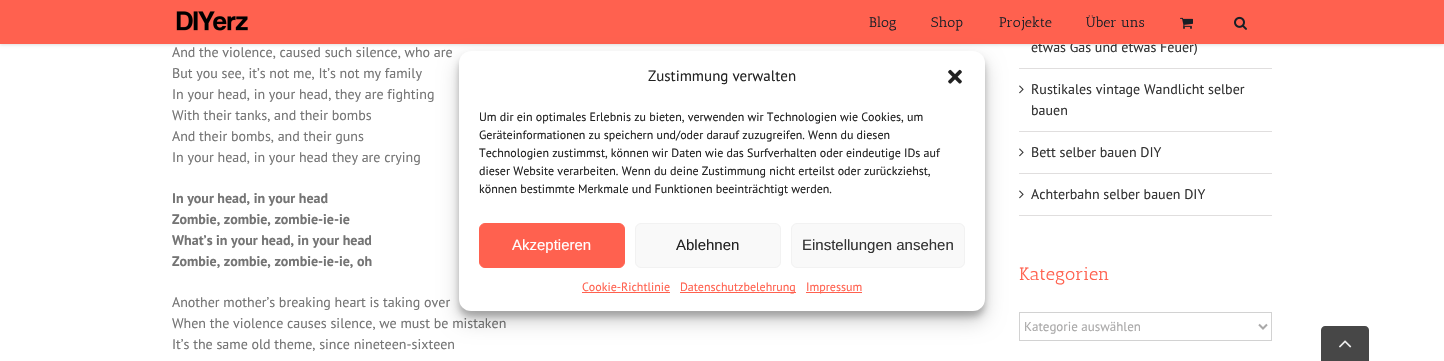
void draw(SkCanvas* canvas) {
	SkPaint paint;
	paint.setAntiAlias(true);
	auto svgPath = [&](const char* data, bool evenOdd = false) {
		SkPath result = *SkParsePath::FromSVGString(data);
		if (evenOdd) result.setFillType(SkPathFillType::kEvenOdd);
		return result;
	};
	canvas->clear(0xffffffff);
	paint.setColor(0x1f000000);
	paint.setMaskFilter(SkMaskFilter::MakeBlur(kNormal_SkBlurStyle, 1.5));
	canvas->drawRect(SkRect::MakeXYWH(0, 1, 1444, 44), paint);
	paint.setMaskFilter(nullptr);
	SkFont f1(fontMgr->matchFamilyStyle("PT Sans", SkFontStyle::Normal()), 14);
	f1.setSubpixel(true);
	paint.setColor(0xff333333);
	canvas->drawString("etwas Gas und etwas Feuer)", 1031, 52, f1, paint);
	paint.setColor(0xffff614f);
	canvas->drawRect(SkRect::MakeXYWH(0, 0, 1444, 44), paint);
	canvas->drawImageRect(SkImages::DeferredFromEncodedData(SkData::MakeFromFileName("img1.png")), SkRect::MakeXYWH(176, 11, 72, 20), SkSamplingOptions());
	SkFont f2(fontMgr->matchFamilyStyle("Antic Slab", SkFontStyle::Normal()), 14);
	f2.setSubpixel(true);
	paint.setColor(0xff181e25);
	canvas->drawString("Blog", 869, 27, f2, paint);
	canvas->drawString("Shop", 931, 27, f2, paint);
	canvas->drawString("Projekte", 999, 27, f2, paint);
	canvas->drawString("Über uns", 1086, 27, f2, paint);
	canvas->drawImageRect(SkImages::DeferredFromEncodedData(SkData::MakeFromFileName("img2.png")), SkRect::MakeXYWH(1180, 17, 13, 12), SkSamplingOptions());
	canvas->drawImageRect(SkImages::DeferredFromEncodedData(SkData::MakeFromFileName("img3.png")), SkRect::MakeXYWH(1234, 16, 13, 14), SkSamplingOptions());
	paint.setColor(0xff747474);
	canvas->drawString("And the violence, caused such silence, who are", 172, 57, f1, paint);
	canvas->drawString("But you see, it’s not me, It’s not my family", 172, 78, f1, paint);
	canvas->drawString("In your head, in your head, they are fighting", 172, 99, f1, paint);
	canvas->drawString("With their tanks, and their bombs", 172, 120, f1, paint);
	canvas->drawString("And their bombs, and their guns", 172, 141, f1, paint);
	canvas->drawString("In your head, in your head they are crying", 172, 162, f1, paint);
	SkFont f3(fontMgr->matchFamilyStyle("PT Sans", SkFontStyle::Bold()), 14);
	f3.setSubpixel(true);
	canvas->drawString("In your head, in your head", 172, 203, f3, paint);
	canvas->drawString("Zombie, zombie, zombie-ie-ie", 172, 224, f3, paint);
	canvas->drawString("What’s in your head, in your head", 172, 245, f3, paint);
	canvas->drawString("Zombie, zombie, zombie-ie-ie, oh", 172, 266, f3, paint);
	canvas->drawString("Another mother’s breaking heart is taking over", 172, 307, f1, paint);
	canvas->drawString("When the violence causes silence, we must be mistaken", 172, 328, f1, paint);
	canvas->drawString("It’s the same old theme, since nineteen-sixteen", 172, 349, f1, paint);
	paint.setColor(0xffe0dede);
	canvas->drawRect(SkRect::MakeXYWH(1019, 68, 253, 1), paint);
	canvas->drawRect(SkRect::MakeXYWH(1019, 131, 253, 1), paint);
	canvas->drawImageRect(SkImages::DeferredFromEncodedData(SkData::MakeFromFileName("img4.png")), SkRect::MakeXYWH(1019, 85, 5, 9), SkSamplingOptions());
	paint.setColor(0xff333333);
	canvas->drawString("Rustikales vintage Wandlicht selber", 1031, 94, f1, paint);
	canvas->drawString("bauen", 1031, 115, f1, paint);
	paint.setColor(0xffe0dede);
	canvas->drawRect(SkRect::MakeXYWH(1019, 173, 253, 1), paint);
	canvas->drawImageRect(SkImages::DeferredFromEncodedData(SkData::MakeFromFileName("img4.png")), SkRect::MakeXYWH(1019, 148, 5, 9), SkSamplingOptions());
	paint.setColor(0xff333333);
	canvas->drawString("Bett selber bauen DIY", 1031, 157, f1, paint);
	paint.setColor(0xffe0dede);
	canvas->drawRect(SkRect::MakeXYWH(1019, 215, 253, 1), paint);
	canvas->drawImageRect(SkImages::DeferredFromEncodedData(SkData::MakeFromFileName("img4.png")), SkRect::MakeXYWH(1019, 190, 5, 9), SkSamplingOptions());
	paint.setColor(0xff333333);
	canvas->drawString("Achterbahn selber bauen DIY", 1031, 199, f1, paint);
	SkFont f4(fontMgr->matchFamilyStyle("Antic Slab", SkFontStyle::Normal()), 18);
	f4.setSubpixel(true);
	paint.setColor(0xffff614f);
	canvas->drawString("Kategorien", 1019, 280, f4, paint);
	paint.setStroke(true);
	paint.setStrokeWidth(1);
	paint.setColor(0xffd2d2d2);
	canvas->drawRect(SkRect::MakeXYWH(1019.5, 312.5, 252, 28), paint);
	paint.setStrokeWidth(2);
	paint.setColor(0xffaaa9a9);
	canvas->drawPath(svgPath("M1259 324.5L1263 328.5L1267 324.5"), paint);
	SkFont f5(fontMgr->matchFamilyStyle("PT Sans", SkFontStyle::Normal()), 13);
	f5.setSubpixel(true);
	paint.setStroke(false);
	canvas->drawString("Kategorie auswählen", 1024, 331, f5, paint);
	paint.setColor(0x3b000000);
	paint.setMaskFilter(SkMaskFilter::MakeBlur(kNormal_SkBlurStyle, 3));
	canvas->drawRoundRect(SkRect::MakeXYWH(459, 57, 526, 260), 12, 12, paint);
	paint.setMaskFilter(nullptr);
	paint.setColor(0x30000000);
	paint.setMaskFilter(SkMaskFilter::MakeBlur(kNormal_SkBlurStyle, 10));
	canvas->drawRoundRect(SkRect::MakeXYWH(459, 61, 526, 260), 12, 12, paint);
	paint.setMaskFilter(nullptr);
	paint.setColor(0xffffffff);
	canvas->drawRoundRect(SkRect::MakeXYWH(459, 51, 526, 260), 12, 12, paint);
	SkFont f6(fontMgr->matchFamilyStyle("PT Sans", SkFontStyle::Normal()), 15);
	f6.setSubpixel(true);
	paint.setColor(0xff222222);
	canvas->drawString("Zustimmung verwalten", 648, 81, f6, paint);
	canvas->drawImageRect(SkImages::DeferredFromEncodedData(SkData::MakeFromFileName("img5.png")), SkRect::MakeXYWH(948, 69, 14, 15), SkSamplingOptions());
	SkFont f7(fontMgr->matchFamilyStyle("PT Sans", SkFontStyle::Normal()), 12);
	f7.setSubpixel(true);
	canvas->drawString("Um dir ein optimales Erlebnis zu bieten, verwenden wir Technologien wie Cookies, um", 479, 121, f7, paint);
	canvas->drawString("Geräteinformationen zu speichern und/oder darauf zuzugreifen. Wenn du diesen", 479, 139, f7, paint);
	canvas->drawString("Technologien zustimmst, können wir Daten wie das Surfverhalten oder eindeutige IDs auf", 479, 157, f7, paint);
	canvas->drawString("dieser Website verarbeiten. Wenn du deine Zustimmung nicht erteilst oder zurückziehst,", 479, 175, f7, paint);
	canvas->drawString("können bestimmte Merkmale und Funktionen beeinträchtigt werden.", 479, 193, f7, paint);
	paint.setColor(0xffff614f);
	canvas->drawRoundRect(SkRect::MakeXYWH(479.5, 223.5, 145, 44), 5.5, 5.5, paint);
	paint.setStroke(true);
	paint.setStrokeWidth(1);
	canvas->drawRoundRect(SkRect::MakeXYWH(479.5, 223.5, 145, 44), 5.5, 5.5, paint);
	SkFont f8(fontMgr->matchFamilyStyle("Liberation Sans", SkFontStyle::Normal()), 15);
	f8.setSubpixel(true);
	paint.setStroke(false);
	paint.setColor(0xffffffff);
	canvas->drawString("Akzeptieren", 512, 250, f8, paint);
	paint.setColor(0xfff9f9f9);
	canvas->drawRoundRect(SkRect::MakeXYWH(635.5, 223.5, 145, 44), 5.5, 5.5, paint);
	paint.setStroke(true);
	paint.setColor(0xfff2f2f2);
	canvas->drawRoundRect(SkRect::MakeXYWH(635.5, 223.5, 145, 44), 5.5, 5.5, paint);
	paint.setStroke(false);
	paint.setColor(0xff222222);
	canvas->drawString("Ablehnen", 676, 250, f8, paint);
	paint.setColor(0xfff9f9f9);
	canvas->drawRoundRect(SkRect::MakeXYWH(791.5, 223.5, 173, 44), 5.5, 5.5, paint);
	paint.setStroke(true);
	paint.setColor(0xfff2f2f2);
	canvas->drawRoundRect(SkRect::MakeXYWH(791.5, 223.5, 173, 44), 5.5, 5.5, paint);
	paint.setStroke(false);
	paint.setColor(0xff333333);
	canvas->drawString("Einstellungen ansehen", 802, 250, f8, paint);
	paint.setColor(0xffff614f);
	canvas->drawString("Cookie-Richtlinie", 582, 291, f7, paint);
	canvas->drawRect(SkRect::MakeXYWH(582, 292, 88, 1), paint);
	canvas->drawRect(SkRect::MakeXYWH(680, 292, 116, 1), paint);
	canvas->drawString("Datenschutzbelehrung", 680, 291, f7, paint);
	canvas->drawRect(SkRect::MakeXYWH(806, 292, 56, 1), paint);
	canvas->drawString("Impressum", 806, 291, f7, paint);
	paint.setColor(0xff474747);
	canvas->drawPath(svgPath("M1325 326H1365C1367 326 1369 328 1369 330V361H1321V330C1321 328 1323 326 1325 326Z"), paint);
	canvas->drawImageRect(SkImages::DeferredFromEncodedData(SkData::MakeFromFileName("img6.png")), SkRect::MakeXYWH(1339, 340, 13, 8), SkSamplingOptions());
}
